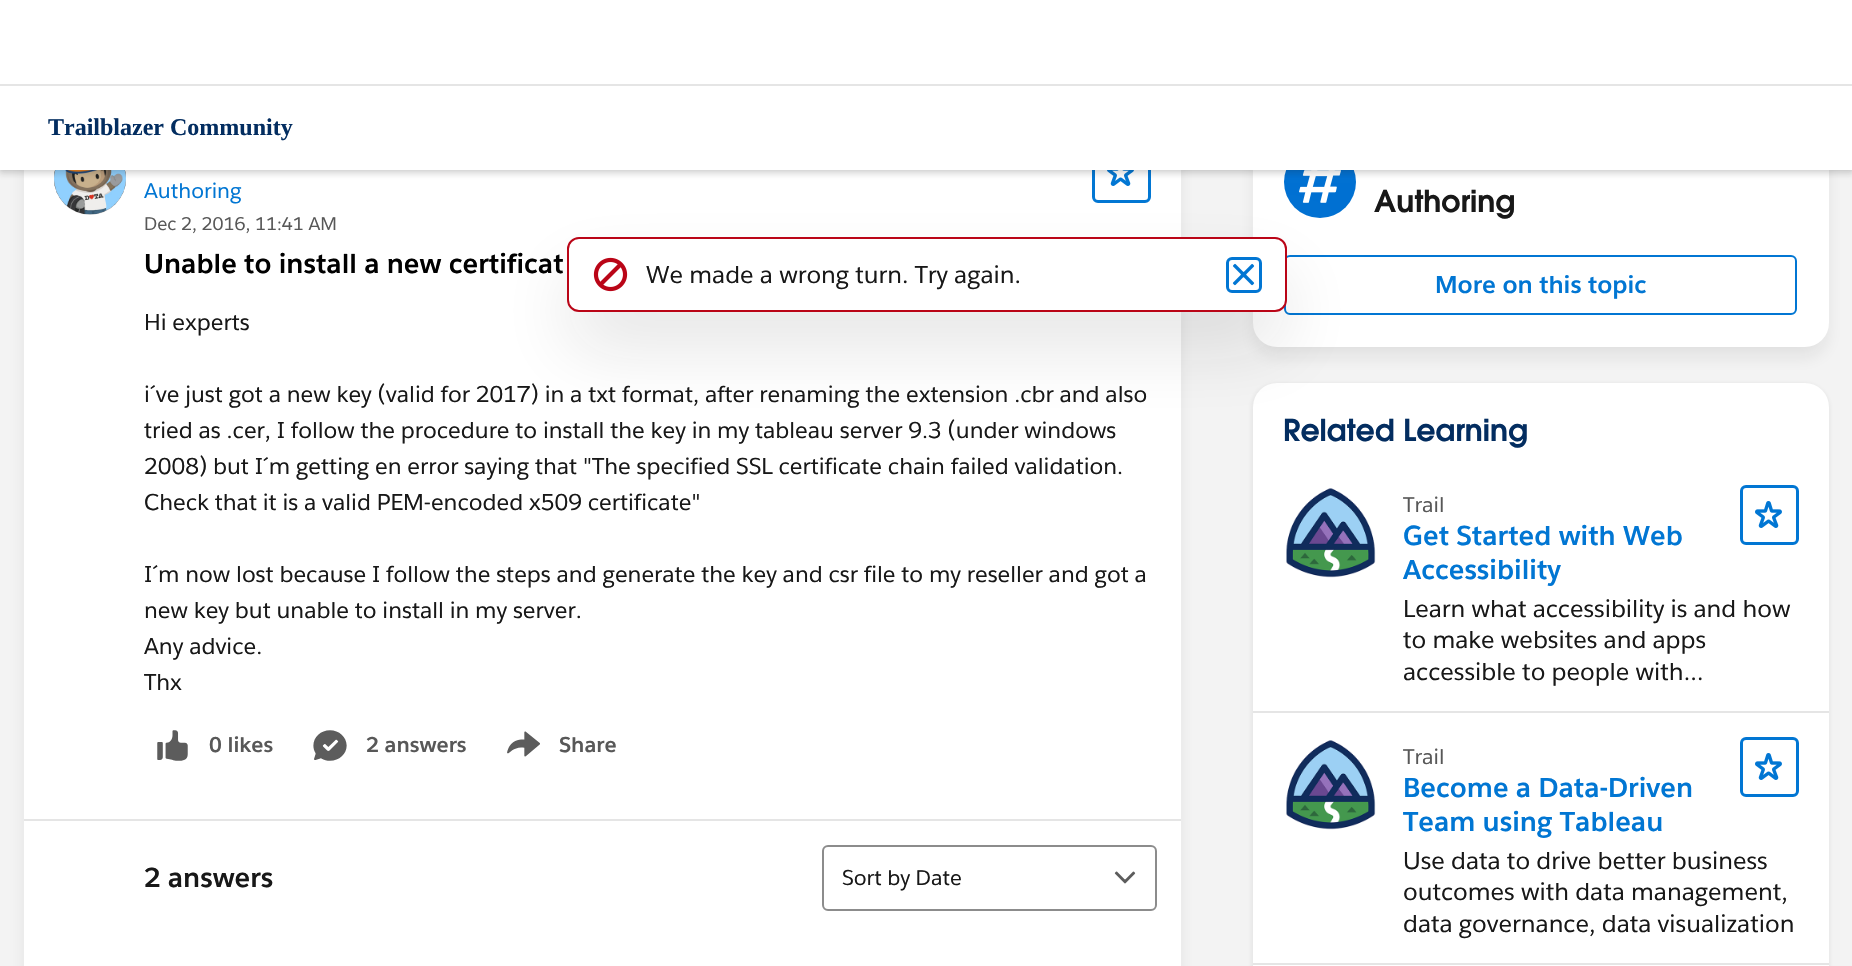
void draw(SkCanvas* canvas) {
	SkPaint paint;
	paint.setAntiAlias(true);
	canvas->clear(0xfff3f3f3);
	paint.setColor(0x17181818);
	paint.setMaskFilter(SkMaskFilter::MakeBlur(kNormal_SkBlurStyle, 9));
	canvas->drawRoundRect(SkRect::MakeXYWH(27, 128, 1151, 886), 21, 21, paint);
	paint.setMaskFilter(nullptr);
	paint.setColor(0xffffffff);
	canvas->drawRect(SkRect::MakeXYWH(24, 170, 1157, 796), paint);
	paint.setColor(0xffe5e5e5);
	canvas->drawCircle(90, 179, 36, paint);
	canvas->drawImageRect(SkImages::DeferredFromEncodedData(SkData::MakeFromFileName("img1.png")), SkRect::MakeXYWH(54, 170, 72, 45), SkSamplingOptions());
	paint.setStroke(true);
	paint.setStrokeWidth(3);
	paint.setColor(0xff0176d3);
	canvas->drawRoundRect(SkRect::MakeXYWH(1093.5, 144.5, 56, 57), 4.5, 4.5, paint);
	canvas->drawImageRect(SkImages::DeferredFromEncodedData(SkData::MakeFromFileName("img2.png")), SkRect::MakeXYWH(1107, 170, 27, 16), SkSamplingOptions());
	paint.setStroke(false);
	paint.setColor(0x0f181818);
	paint.setMaskFilter(SkMaskFilter::MakeBlur(kNormal_SkBlurStyle, 2));
	canvas->drawRoundRect(SkRect::MakeXYWH(1251, 383, 579, 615), 26, 26, paint);
	paint.setMaskFilter(nullptr);
	paint.setColor(0xffffffff);
	canvas->drawRoundRect(SkRect::MakeXYWH(1253, 383, 576, 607), 24, 24, paint);
	paint.setColor(0x17181818);
	paint.setMaskFilter(SkMaskFilter::MakeBlur(kNormal_SkBlurStyle, 9));
	canvas->drawRoundRect(SkRect::MakeXYWH(1256, 128, 570, 228), 21, 21, paint);
	paint.setMaskFilter(nullptr);
	paint.setColor(0xffffffff);
	canvas->drawRoundRect(SkRect::MakeXYWH(1253, 113, 576, 234), 24, 24, paint);
	paint.setColor(0xff0070d2);
	canvas->drawCircle(1320, 182, 36, paint);
	canvas->drawImageRect(SkImages::DeferredFromEncodedData(SkData::MakeFromFileName("img7.png")), SkRect::MakeXYWH(1299, 170, 42, 33), SkSamplingOptions());
	paint.setColor(0x29181818);
	paint.setMaskFilter(SkMaskFilter::MakeBlur(kNormal_SkBlurStyle, 3));
	canvas->drawRect(SkRect::MakeXYWH(-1, 86, 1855, 88), paint);
	paint.setMaskFilter(nullptr);
	paint.setColor(0x14181818);
	paint.setMaskFilter(SkMaskFilter::MakeBlur(kNormal_SkBlurStyle, 1.5));
	canvas->drawRect(SkRect::MakeXYWH(0, 84, 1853, 86), paint);
	paint.setMaskFilter(nullptr);
	paint.setColor(0xffffffff);
	canvas->drawRect(SkRect::MakeXYWH(0, 0, 1852, 84), paint);
	paint.setStroke(true);
	paint.setStrokeWidth(2);
	paint.setColor(0xff0176d3);
	canvas->drawRoundRect(SkRect::MakeXYWH(1285, 256, 511, 58), 5, 5, paint);
	paint.setStroke(false);
	paint.setColor(0x1f181818);
	paint.setMaskFilter(SkMaskFilter::MakeBlur(kNormal_SkBlurStyle, 36));
	canvas->drawRoundRect(SkRect::MakeXYWH(570, 276, 714, 69), 9, 9, paint);
	paint.setMaskFilter(nullptr);
	paint.setColor(0xffffffff);
	canvas->drawRect(SkRect::MakeXYWH(0, 86, 1852, 84), paint);
	paint.setColor(0xffe5e5e5);
	canvas->drawRect(SkRect::MakeXYWH(0, 84, 1852, 2), paint);
	SkFont f1(fontMgr->matchFamilyStyle("Liberation Serif", SkFontStyle::Bold()), 24);
	f1.setSubpixel(true);
	paint.setColor(0xff032d60);
	canvas->drawString("Trailblazer Community", 48, 135, f1, paint);
	SkFont f2(fontMgr->matchFamilyStyle("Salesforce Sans", SkFontStyle::Normal()), 21);
	f2.setSubpixel(true);
	paint.setColor(0xff0176d3);
	canvas->drawString("Authoring", 144, 198, f2, paint);
	SkFont f3(fontMgr->matchFamilyStyle("Salesforce Sans", SkFontStyle::Normal()), 18);
	f3.setSubpixel(true);
	paint.setColor(0xff585858);
	canvas->drawString("Dec 2, 2016, 11:41 AM", 144, 230, f3, paint);
	SkFont f4(fontMgr->matchFamilyStyle("Salesforce Sans", SkFontStyle::Bold()), 27);
	f4.setSubpixel(true);
	paint.setColor(0xff000000);
	canvas->drawString("Unable to install a new certificat", 144, 273, f4, paint);
	SkFont f5(fontMgr->matchFamilyStyle("Salesforce Sans", SkFontStyle::Normal()), 22.5);
	f5.setSubpixel(true);
	paint.setColor(0xff181818);
	canvas->drawString("Hi experts", 144, 330, f5, paint);
	canvas->drawString("i´ve just got a new key (valid for 2017) in a txt format, after renaming the extension .cbr and also", 144, 402, f5, paint);
	canvas->drawString("tried as .cer, I follow the procedure to install the key in my tableau server 9.3 (under windows", 144, 438, f5, paint);
	canvas->drawString("2008) but I´m getting en error saying that \"The specified SSL certificate chain failed validation.", 144, 474, f5, paint);
	canvas->drawString("Check that it is a valid PEM-encoded x509 certificate\"", 144, 510, f5, paint);
	canvas->drawString("I´m now lost because I follow the steps and generate the key and csr file to my reseller and got a", 144, 582, f5, paint);
	canvas->drawString("new key but unable to install in my server.", 144, 618, f5, paint);
	canvas->drawString("Any advice.", 144, 654, f5, paint);
	canvas->drawString("Thx", 144, 690, f5, paint);
	canvas->drawImageRect(SkImages::DeferredFromEncodedData(SkData::MakeFromFileName("img3.png")), SkRect::MakeXYWH(157, 730, 31, 31), SkSamplingOptions());
	SkFont f6(fontMgr->matchFamilyStyle("Salesforce Sans", SkFontStyle::Bold()), 21);
	f6.setSubpixel(true);
	paint.setColor(0xff585858);
	canvas->drawString("0 likes", 209, 752, f6, paint);
	canvas->drawImageRect(SkImages::DeferredFromEncodedData(SkData::MakeFromFileName("img4.png")), SkRect::MakeXYWH(313, 730, 34, 31), SkSamplingOptions());
	canvas->drawString("2 answers", 366, 752, f6, paint);
	canvas->drawImageRect(SkImages::DeferredFromEncodedData(SkData::MakeFromFileName("img5.png")), SkRect::MakeXYWH(507, 731, 33, 26), SkSamplingOptions());
	canvas->drawString("Share", 559, 752, f6, paint);
	paint.setColor(0xffe5e5e5);
	canvas->drawRect(SkRect::MakeXYWH(24, 819, 1157, 2), paint);
	paint.setColor(0xff181818);
	canvas->drawString("2 answers", 144, 887, f4, paint);
	paint.setStroke(true);
	paint.setColor(0xff8c8c8c);
	canvas->drawRoundRect(SkRect::MakeXYWH(823, 846, 333, 64), 5, 5, paint);
	paint.setStroke(false);
	paint.setColor(0xff181818);
	canvas->drawString("Sort by Date", 842, 885, f2, paint);
	canvas->drawImageRect(SkImages::DeferredFromEncodedData(SkData::MakeFromFileName("img6.png")), SkRect::MakeXYWH(1114, 871, 22, 13), SkSamplingOptions());
	SkFont f7(fontMgr->matchFamilyStyle("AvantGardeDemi", SkFontStyle(600, SkFontStyle::kNormal_Width, SkFontStyle::kUpright_Slant)), 30);
	f7.setSubpixel(true);
	canvas->drawString("Authoring", 1374, 212, f7, paint);
	SkFont f8(fontMgr->matchFamilyStyle("Salesforce Sans", SkFontStyle::Bold()), 24);
	f8.setSubpixel(true);
	paint.setColor(0xff0176d3);
	canvas->drawString("More on this topic", 1435, 293, f8, paint);
	paint.setColor(0xff032d60);
	canvas->drawString("Related Learning", 1283, 441, f7, paint);
	canvas->drawImageRect(SkImages::DeferredFromEncodedData(SkData::MakeFromFileName("img8.png")), SkRect::MakeXYWH(1286, 488, 90, 90), SkSamplingOptions());
	paint.setColor(0xff585858);
	canvas->drawString("Trail", 1403, 512, f2, paint);
	paint.setStroke(true);
	paint.setStrokeWidth(3);
	paint.setColor(0xff0176d3);
	canvas->drawRoundRect(SkRect::MakeXYWH(1741.5, 486.5, 56, 57), 4.5, 4.5, paint);
	canvas->drawImageRect(SkImages::DeferredFromEncodedData(SkData::MakeFromFileName("img9.png")), SkRect::MakeXYWH(1755, 501, 27, 27), SkSamplingOptions());
	paint.setStroke(false);
	canvas->drawString("Get Started with Web", 1403, 545, f4, paint);
	canvas->drawString("Accessibility", 1403, 579, f4, paint);
	SkFont f9(fontMgr->matchFamilyStyle("Salesforce Sans", SkFontStyle::Normal()), 24);
	f9.setSubpixel(true);
	paint.setColor(0xff181818);
	canvas->drawString("Learn what accessibility is and how", 1403, 617, f9, paint);
	canvas->drawString("to make websites and apps", 1403, 648, f9, paint);
	canvas->drawString("accessible to people with…", 1403, 680, f9, paint);
	paint.setColor(0xffe5e5e5);
	canvas->drawRect(SkRect::MakeXYWH(1253, 711, 576, 2), paint);
	canvas->drawImageRect(SkImages::DeferredFromEncodedData(SkData::MakeFromFileName("img10.png")), SkRect::MakeXYWH(1286, 740, 90, 90), SkSamplingOptions());
	paint.setColor(0xff585858);
	canvas->drawString("Trail", 1403, 764, f2, paint);
	paint.setStroke(true);
	paint.setColor(0xff0176d3);
	canvas->drawRoundRect(SkRect::MakeXYWH(1741.5, 738.5, 56, 57), 4.5, 4.5, paint);
	canvas->drawImageRect(SkImages::DeferredFromEncodedData(SkData::MakeFromFileName("img9.png")), SkRect::MakeXYWH(1755, 753, 27, 27), SkSamplingOptions());
	paint.setStroke(false);
	canvas->drawString("Become a Data-Driven", 1403, 797, f4, paint);
	canvas->save();
	canvas->clipRect(SkRect::MakeXYWH(1403, 770, 325, 69));
	canvas->drawString("Team using Tableau", 1403, 831, f4, paint);
	canvas->restore();
	paint.setColor(0xff181818);
	canvas->drawString("Use data to drive better business", 1403, 869, f9, paint);
	canvas->drawString("outcomes with data management,", 1403, 900, f9, paint);
	canvas->drawString("data governance, data visualization", 1403, 932, f9, paint);
	paint.setColor(0xffe5e5e5);
	canvas->drawRect(SkRect::MakeXYWH(1253, 963, 576, 2), paint);
	paint.setColor(0xffffffff);
	canvas->drawRoundRect(SkRect::MakeXYWH(568, 238, 718, 73), 11, 11, paint);
	paint.setStroke(true);
	paint.setStrokeWidth(2);
	paint.setColor(0xffba0517);
	canvas->drawRoundRect(SkRect::MakeXYWH(568, 238, 718, 73), 11, 11, paint);
	canvas->drawImageRect(SkImages::DeferredFromEncodedData(SkData::MakeFromFileName("img11.png")), SkRect::MakeXYWH(593, 257, 35, 35), SkSamplingOptions());
	paint.setStroke(false);
	paint.setColor(0xff181818);
	canvas->drawString("We made a wrong turn. Try again.", 646, 283, f9, paint);
	paint.setStroke(true);
	paint.setStrokeWidth(3);
	paint.setColor(0xff0176d3);
	canvas->drawRoundRect(SkRect::MakeXYWH(1227.5, 258.5, 33, 33), 4.5, 4.5, paint);
	canvas->drawImageRect(SkImages::DeferredFromEncodedData(SkData::MakeFromFileName("img12.png")), SkRect::MakeXYWH(1232, 263, 23, 23), SkSamplingOptions());
}
